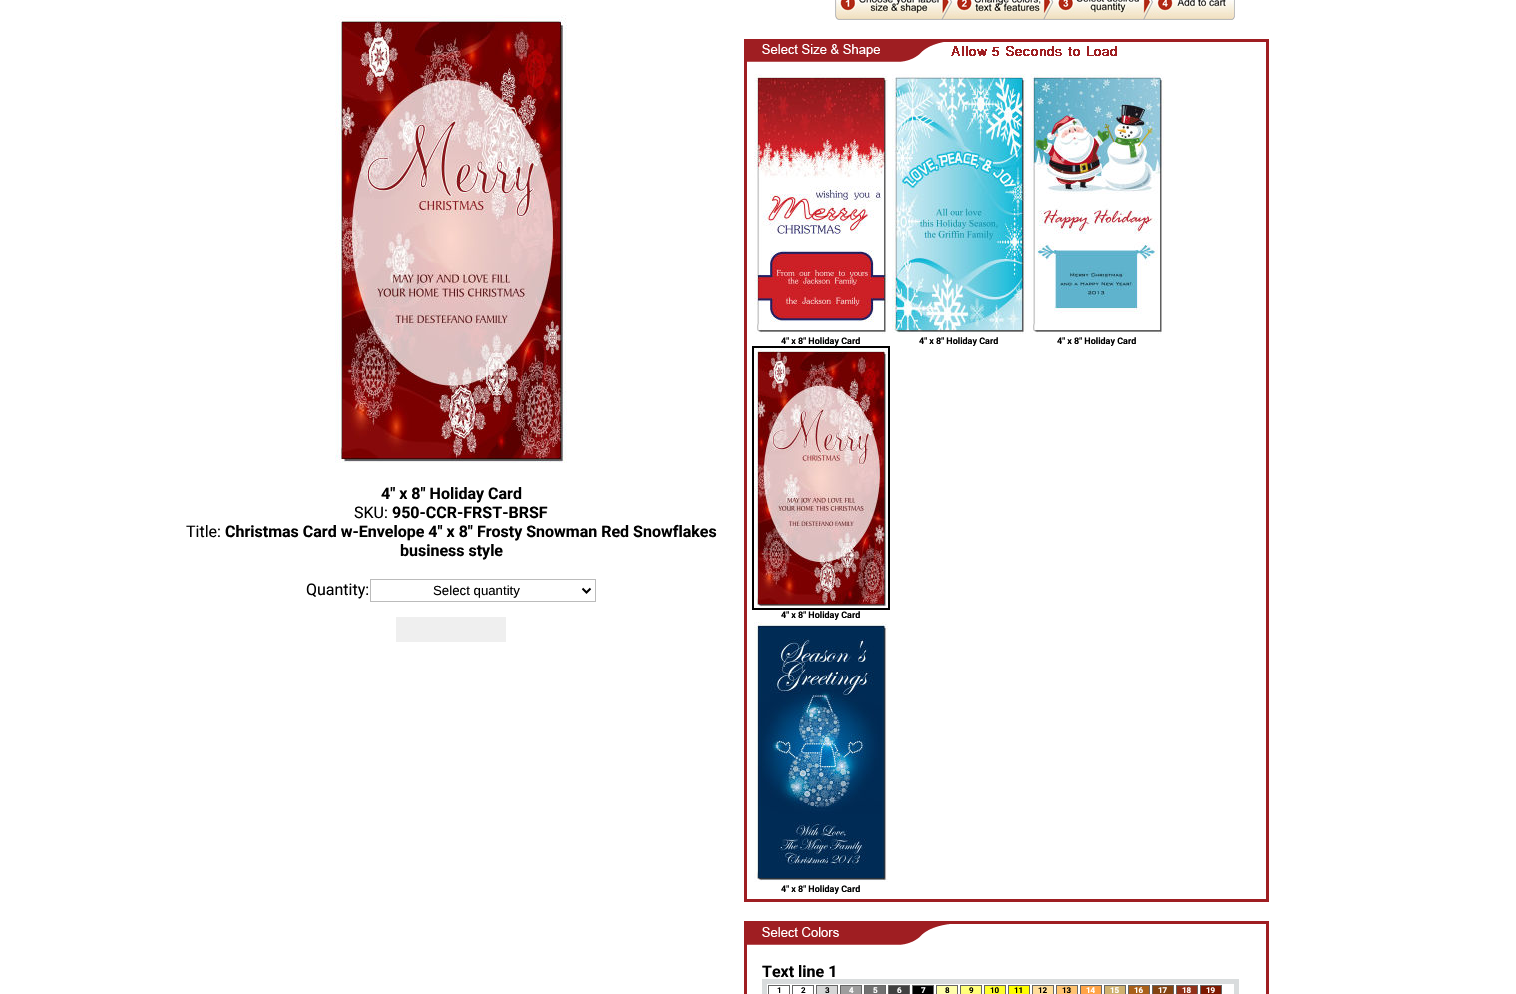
void draw(SkCanvas* canvas) {
	SkPaint paint;
	paint.setAntiAlias(true);
	auto svgPath = [&](const char* data, bool evenOdd = false) {
		SkPath result = *SkParsePath::FromSVGString(data);
		if (evenOdd) result.setFillType(SkPathFillType::kEvenOdd);
		return result;
	};
	canvas->clear(0xffffffff);
	canvas->drawImageRect(SkImages::DeferredFromEncodedData(SkData::MakeFromFileName("img1.png")), SkRect::MakeXYWH(335, 15, 232, 448), SkSamplingOptions());
	SkFont f1(fontMgr->matchFamilyStyle("Roboto", SkFontStyle::Bold()), 16);
	f1.setSubpixel(true);
	paint.setColor(0xff000000);
	canvas->drawString("4\" x 8\" Holiday Card", 381, 499, f1, paint);
	SkFont f2(fontMgr->matchFamilyStyle("Roboto", SkFontStyle::Normal()), 16);
	f2.setSubpixel(true);
	canvas->drawString("SKU:", 354, 518, f2, paint);
	canvas->drawString("950-CCR-FRST-BRSF", 392, 518, f1, paint);
	canvas->drawString("Title:", 186, 537, f2, paint);
	canvas->drawString("Christmas Card w-Envelope 4\" x 8\" Frosty Snowman Red Snowflakes", 225, 537, f1, paint);
	canvas->drawString("business style", 400, 556, f1, paint);
	canvas->drawString("Quantity:", 306, 595, f2, paint);
	paint.setStroke(true);
	paint.setStrokeWidth(1);
	paint.setColor(0xffbbbbbb);
	canvas->drawRect(SkRect::MakeXYWH(370.5, 579.5, 225, 22), paint);
	paint.setStrokeWidth(2);
	paint.setColor(0xff000000);
	canvas->drawPath(svgPath("M582.5 588.5L586.5 592.5L590.5 588.5"), paint);
	SkFont f3(fontMgr->matchFamilyStyle("Liberation Sans", SkFontStyle::Normal()), 13.25);
	f3.setSubpixel(true);
	paint.setStroke(false);
	canvas->drawString("Select quantity", 433, 595, f3, paint);
	paint.setColor(0xffefefef);
	canvas->drawRect(SkRect::MakeXYWH(396, 617, 110, 25), paint);
	canvas->drawImageRect(SkImages::DeferredFromEncodedData(SkData::MakeFromFileName("img2.png")), SkRect::MakeXYWH(835, 0, 400, 20), SkSamplingOptions());
	canvas->drawImageRect(SkImages::DeferredFromEncodedData(SkData::MakeFromFileName("img3.png")), SkRect::MakeXYWH(747, 42, 370, 20), SkSamplingOptions());
	paint.setStroke(true);
	paint.setStrokeWidth(3);
	paint.setColor(0xff9f1e22);
	canvas->drawRect(SkRect::MakeXYWH(745.5, 40.5, 522, 860), paint);
	canvas->drawImageRect(SkImages::DeferredFromEncodedData(SkData::MakeFromFileName("img4.png")), SkRect::MakeXYWH(754, 74, 134, 260), SkSamplingOptions());
	SkFont f4(fontMgr->matchFamilyStyle("Roboto", SkFontStyle::Bold()), 9);
	f4.setSubpixel(true);
	paint.setStroke(false);
	paint.setColor(0xff000000);
	canvas->drawString("4\" x 8\" Holiday Card", 781, 344, f4, paint);
	canvas->drawImageRect(SkImages::DeferredFromEncodedData(SkData::MakeFromFileName("img5.png")), SkRect::MakeXYWH(892, 74, 134, 260), SkSamplingOptions());
	canvas->drawString("4\" x 8\" Holiday Card", 919, 344, f4, paint);
	canvas->drawImageRect(SkImages::DeferredFromEncodedData(SkData::MakeFromFileName("img6.png")), SkRect::MakeXYWH(1030, 74, 134, 260), SkSamplingOptions());
	canvas->drawString("4\" x 8\" Holiday Card", 1057, 344, f4, paint);
	paint.setStroke(true);
	paint.setStrokeWidth(2);
	canvas->drawRect(SkRect::MakeXYWH(753, 347, 136, 262), paint);
	canvas->drawImageRect(SkImages::DeferredFromEncodedData(SkData::MakeFromFileName("img7.png")), SkRect::MakeXYWH(754, 348, 134, 260), SkSamplingOptions());
	paint.setStroke(false);
	canvas->drawString("4\" x 8\" Holiday Card", 781, 618, f4, paint);
	canvas->drawImageRect(SkImages::DeferredFromEncodedData(SkData::MakeFromFileName("img8.png")), SkRect::MakeXYWH(754, 622, 134, 260), SkSamplingOptions());
	canvas->drawString("4\" x 8\" Holiday Card", 781, 892, f4, paint);
	canvas->drawImageRect(SkImages::DeferredFromEncodedData(SkData::MakeFromFileName("img9.png")), SkRect::MakeXYWH(747, 924, 203, 21), SkSamplingOptions());
	paint.setStroke(true);
	paint.setStrokeWidth(3);
	paint.setColor(0xff9f1e22);
	canvas->drawRect(SkRect::MakeXYWH(745.5, 922.5, 522, 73), paint);
	paint.setStroke(false);
	paint.setColor(0xff000000);
	canvas->drawString("Text line 1", 762, 977, f1, paint);
	paint.setStroke(true);
	paint.setStrokeWidth(5);
	paint.setColor(0xffd9dcdd);
	canvas->drawRect(SkRect::MakeXYWH(764.5, 981.5, 472, 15), paint);
	paint.setStrokeWidth(1);
	paint.setColor(0xff666666);
	canvas->drawRect(SkRect::MakeXYWH(768.5, 985.5, 21, 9), paint);
	SkFont f5(fontMgr->matchFamilyStyle("Roboto", SkFontStyle::Bold()), 8);
	f5.setSubpixel(true);
	paint.setStroke(false);
	paint.setColor(0xff000000);
	canvas->drawString("1", 777, 993, f5, paint);
	paint.setStroke(true);
	paint.setColor(0xff666666);
	canvas->drawRect(SkRect::MakeXYWH(792.5, 985.5, 21, 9), paint);
	paint.setStroke(false);
	paint.setColor(0xff000000);
	canvas->drawString("2", 801, 993, f5, paint);
	paint.setColor(0xffd6d6d6);
	canvas->drawRect(SkRect::MakeXYWH(816.5, 985.5, 21, 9), paint);
	paint.setStroke(true);
	paint.setColor(0xff666666);
	canvas->drawRect(SkRect::MakeXYWH(816.5, 985.5, 21, 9), paint);
	paint.setStroke(false);
	paint.setColor(0xff000000);
	canvas->drawString("3", 825, 993, f5, paint);
	paint.setColor(0xff9d9d9d);
	canvas->drawRect(SkRect::MakeXYWH(840.5, 985.5, 21, 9), paint);
	paint.setStroke(true);
	paint.setColor(0xff666666);
	canvas->drawRect(SkRect::MakeXYWH(840.5, 985.5, 21, 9), paint);
	paint.setStroke(false);
	paint.setColor(0xffffffff);
	canvas->drawString("4", 849, 993, f5, paint);
	paint.setColor(0xff717171);
	canvas->drawRect(SkRect::MakeXYWH(864.5, 985.5, 21, 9), paint);
	paint.setStroke(true);
	paint.setColor(0xff666666);
	canvas->drawRect(SkRect::MakeXYWH(864.5, 985.5, 21, 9), paint);
	paint.setStroke(false);
	paint.setColor(0xffffffff);
	canvas->drawString("5", 873, 993, f5, paint);
	paint.setColor(0xff404040);
	canvas->drawRect(SkRect::MakeXYWH(888.5, 985.5, 21, 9), paint);
	paint.setStroke(true);
	paint.setColor(0xff666666);
	canvas->drawRect(SkRect::MakeXYWH(888.5, 985.5, 21, 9), paint);
	paint.setStroke(false);
	paint.setColor(0xffffffff);
	canvas->drawString("6", 897, 993, f5, paint);
	paint.setColor(0xff000000);
	canvas->drawRect(SkRect::MakeXYWH(912.5, 985.5, 21, 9), paint);
	paint.setStroke(true);
	paint.setColor(0xff666666);
	canvas->drawRect(SkRect::MakeXYWH(912.5, 985.5, 21, 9), paint);
	paint.setStroke(false);
	paint.setColor(0xffffffff);
	canvas->drawString("7", 921, 993, f5, paint);
	paint.setColor(0xffffffab);
	canvas->drawRect(SkRect::MakeXYWH(936.5, 985.5, 21, 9), paint);
	paint.setStroke(true);
	paint.setColor(0xff666666);
	canvas->drawRect(SkRect::MakeXYWH(936.5, 985.5, 21, 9), paint);
	paint.setStroke(false);
	paint.setColor(0xff000000);
	canvas->drawString("8", 945, 993, f5, paint);
	paint.setColor(0xffffff7a);
	canvas->drawRect(SkRect::MakeXYWH(960.5, 985.5, 21, 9), paint);
	paint.setStroke(true);
	paint.setColor(0xff666666);
	canvas->drawRect(SkRect::MakeXYWH(960.5, 985.5, 21, 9), paint);
	paint.setStroke(false);
	paint.setColor(0xff000000);
	canvas->drawString("9", 969, 993, f5, paint);
	paint.setColor(0xffffff2c);
	canvas->drawRect(SkRect::MakeXYWH(984.5, 985.5, 21, 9), paint);
	paint.setStroke(true);
	paint.setColor(0xff666666);
	canvas->drawRect(SkRect::MakeXYWH(984.5, 985.5, 21, 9), paint);
	paint.setStroke(false);
	paint.setColor(0xff000000);
	canvas->drawString("10", 990, 993, f5, paint);
	paint.setColor(0xffffff00);
	canvas->drawRect(SkRect::MakeXYWH(1008.5, 985.5, 21, 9), paint);
	paint.setStroke(true);
	paint.setColor(0xff666666);
	canvas->drawRect(SkRect::MakeXYWH(1008.5, 985.5, 21, 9), paint);
	paint.setStroke(false);
	paint.setColor(0xff000000);
	canvas->drawString("11", 1014, 993, f5, paint);
	paint.setColor(0xffffdd9b);
	canvas->drawRect(SkRect::MakeXYWH(1032.5, 985.5, 21, 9), paint);
	paint.setStroke(true);
	paint.setColor(0xff666666);
	canvas->drawRect(SkRect::MakeXYWH(1032.5, 985.5, 21, 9), paint);
	paint.setStroke(false);
	paint.setColor(0xff000000);
	canvas->drawString("12", 1038, 993, f5, paint);
	paint.setColor(0xffffc371);
	canvas->drawRect(SkRect::MakeXYWH(1056.5, 985.5, 21, 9), paint);
	paint.setStroke(true);
	paint.setColor(0xff666666);
	canvas->drawRect(SkRect::MakeXYWH(1056.5, 985.5, 21, 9), paint);
	paint.setStroke(false);
	paint.setColor(0xff000000);
	canvas->drawString("13", 1062, 993, f5, paint);
	paint.setColor(0xffffa346);
	canvas->drawRect(SkRect::MakeXYWH(1080.5, 985.5, 21, 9), paint);
	paint.setStroke(true);
	paint.setColor(0xff666666);
	canvas->drawRect(SkRect::MakeXYWH(1080.5, 985.5, 21, 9), paint);
	paint.setStroke(false);
	paint.setColor(0xffffffff);
	canvas->drawString("14", 1086, 993, f5, paint);
	paint.setColor(0xffcfb16f);
	canvas->drawRect(SkRect::MakeXYWH(1104.5, 985.5, 21, 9), paint);
	paint.setStroke(true);
	paint.setColor(0xff666666);
	canvas->drawRect(SkRect::MakeXYWH(1104.5, 985.5, 21, 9), paint);
	paint.setStroke(false);
	paint.setColor(0xffffffff);
	canvas->drawString("15", 1110, 993, f5, paint);
	paint.setColor(0xffa96019);
	canvas->drawRect(SkRect::MakeXYWH(1128.5, 985.5, 21, 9), paint);
	paint.setStroke(true);
	paint.setColor(0xff666666);
	canvas->drawRect(SkRect::MakeXYWH(1128.5, 985.5, 21, 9), paint);
	paint.setStroke(false);
	paint.setColor(0xffffffff);
	canvas->drawString("16", 1134, 993, f5, paint);
	paint.setColor(0xff824311);
	canvas->drawRect(SkRect::MakeXYWH(1152.5, 985.5, 21, 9), paint);
	paint.setStroke(true);
	paint.setColor(0xff666666);
	canvas->drawRect(SkRect::MakeXYWH(1152.5, 985.5, 21, 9), paint);
	paint.setStroke(false);
	paint.setColor(0xffffffff);
	canvas->drawString("17", 1158, 993, f5, paint);
	paint.setColor(0xff913118);
	canvas->drawRect(SkRect::MakeXYWH(1176.5, 985.5, 21, 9), paint);
	paint.setStroke(true);
	paint.setColor(0xff666666);
	canvas->drawRect(SkRect::MakeXYWH(1176.5, 985.5, 21, 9), paint);
	paint.setStroke(false);
	paint.setColor(0xffffffff);
	canvas->drawString("18", 1182, 993, f5, paint);
	paint.setColor(0xff7c1800);
	canvas->drawRect(SkRect::MakeXYWH(1200.5, 985.5, 21, 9), paint);
	paint.setStroke(true);
	paint.setColor(0xff666666);
	canvas->drawRect(SkRect::MakeXYWH(1200.5, 985.5, 21, 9), paint);
	paint.setStroke(false);
	paint.setColor(0xffffffff);
	canvas->drawString("19", 1206, 993, f5, paint);
}
